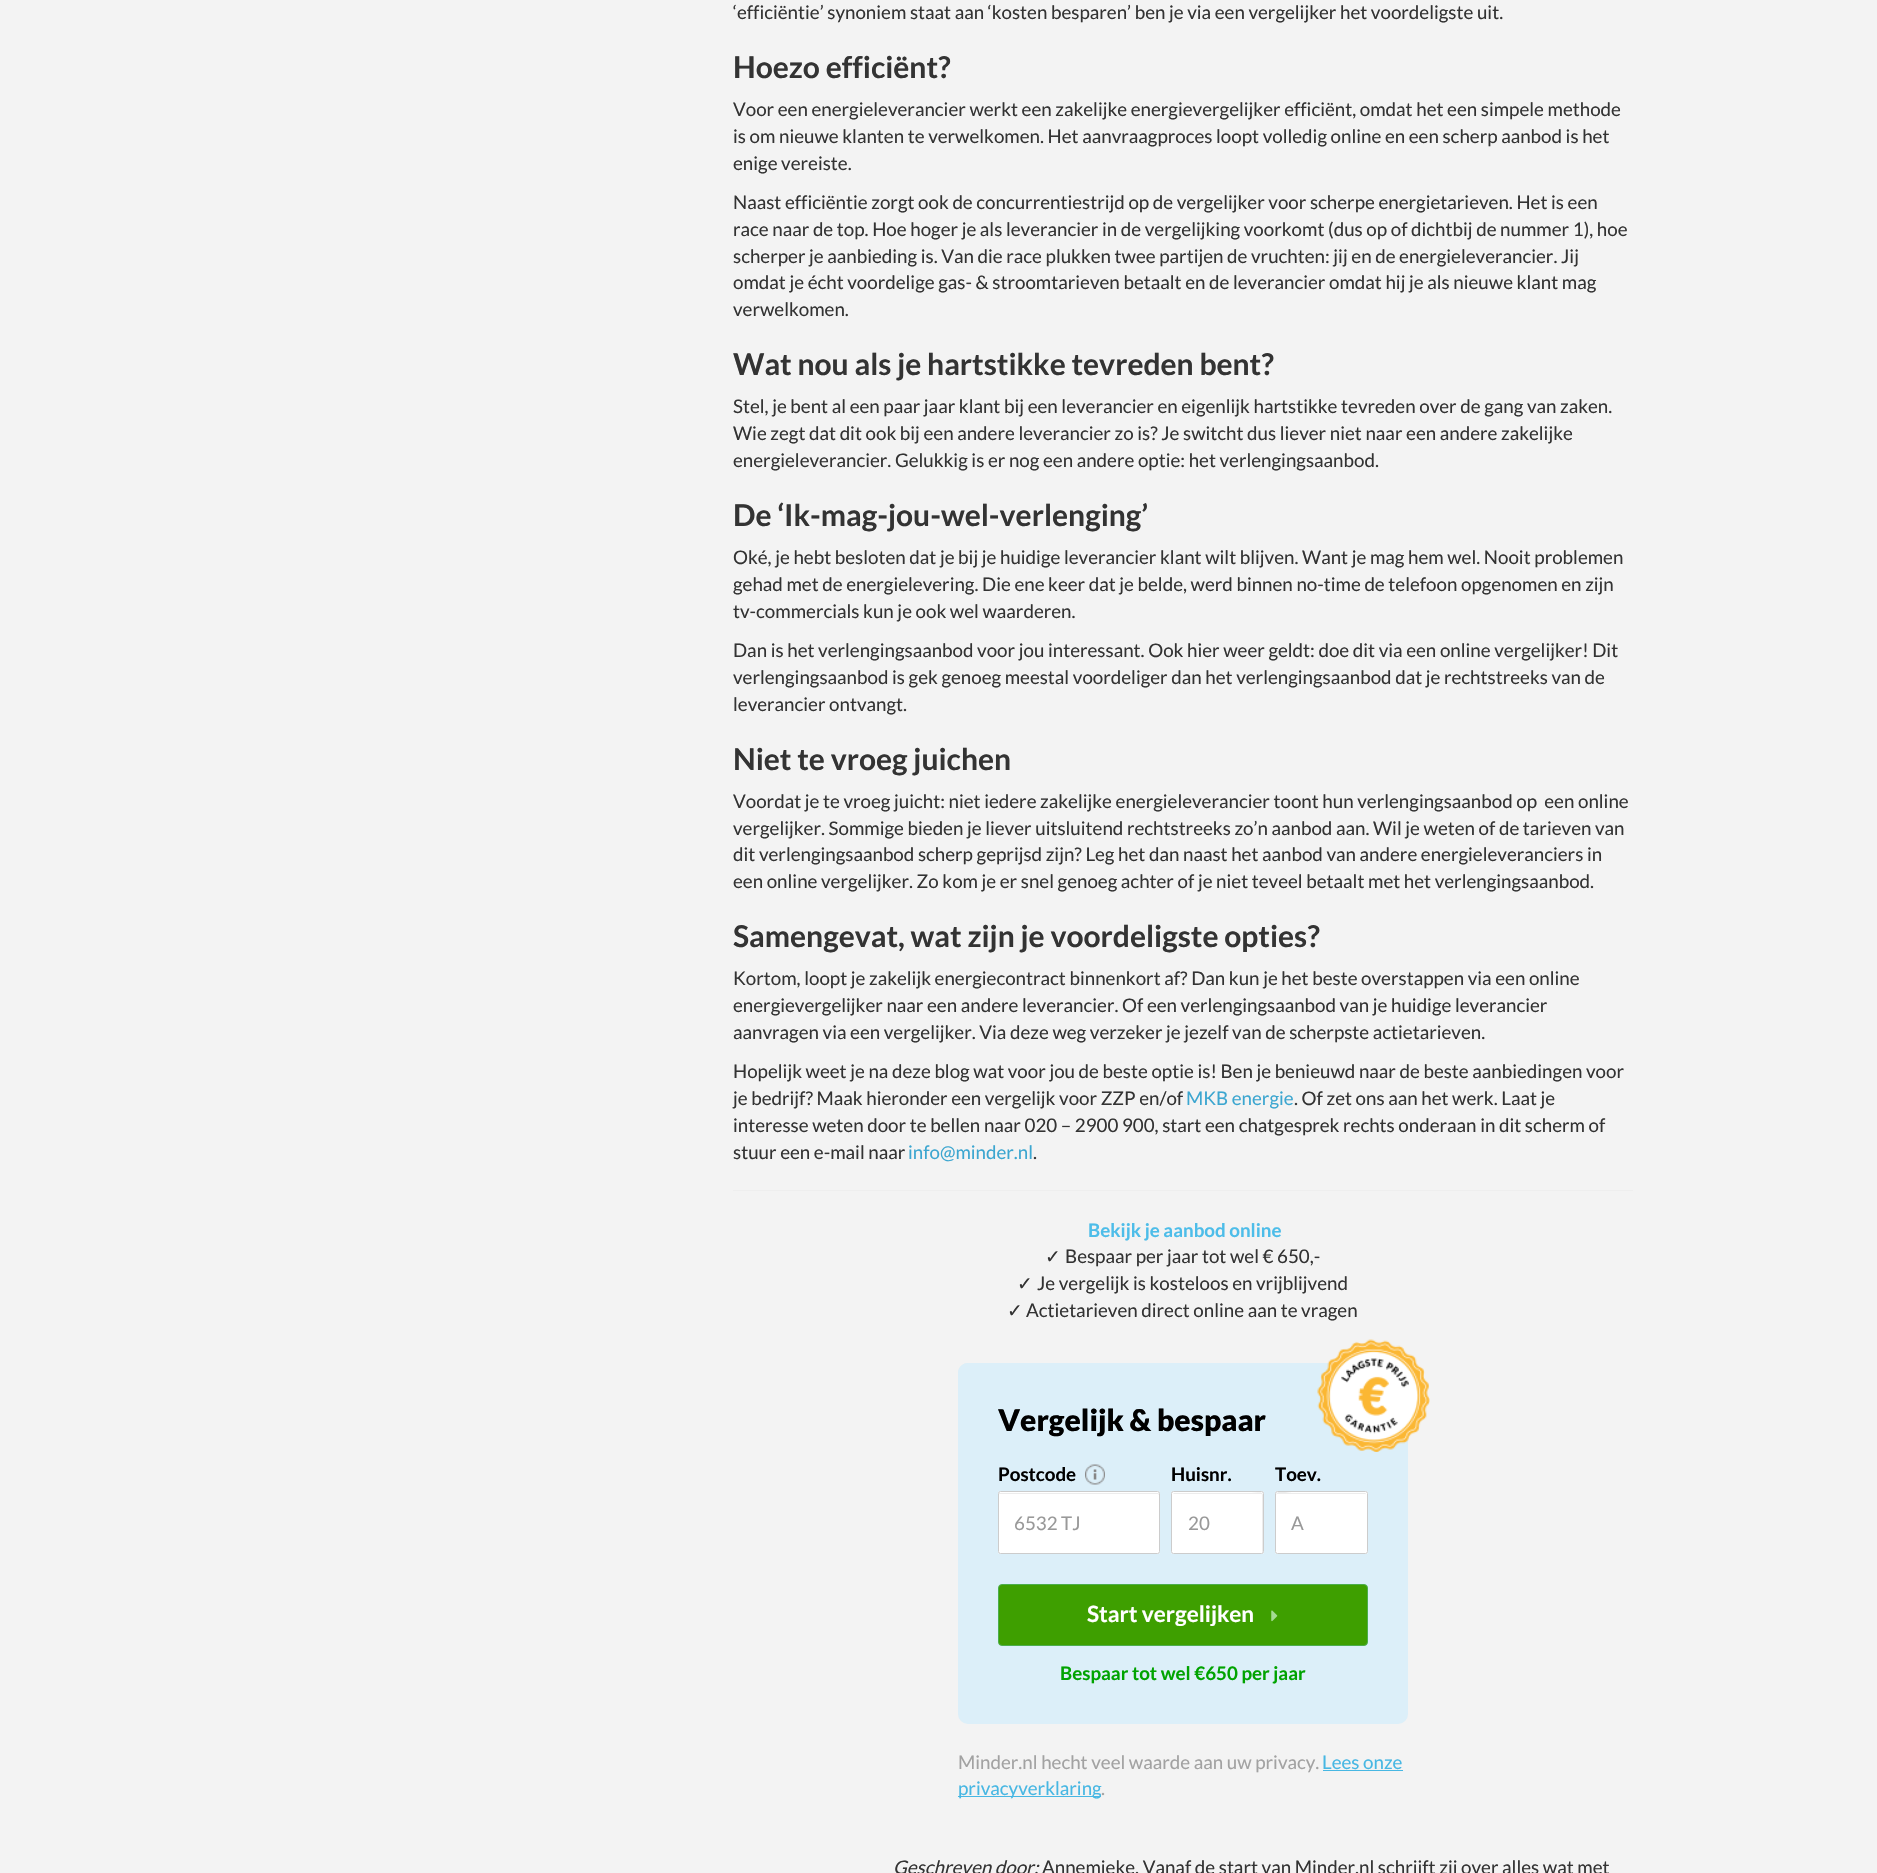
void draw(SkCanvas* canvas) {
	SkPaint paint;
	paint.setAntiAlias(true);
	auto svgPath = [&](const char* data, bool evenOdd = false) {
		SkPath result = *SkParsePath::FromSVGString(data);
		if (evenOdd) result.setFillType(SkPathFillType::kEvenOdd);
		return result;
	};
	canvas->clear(0xfff3f3f3);
	SkFont f1(fontMgr->matchFamilyStyle("Lato", SkFontStyle::Normal()), 18.75);
	f1.setSubpixel(true);
	paint.setColor(0xff333333);
	canvas->drawString("‘efficiëntie’ synoniem staat aan ‘kosten besparen’ ben je via een vergelijker het voordeligste uit.", 733, 19, f1, paint);
	SkFont f2(fontMgr->matchFamilyStyle("Lato", SkFontStyle::Bold()), 30);
	f2.setSubpixel(true);
	canvas->drawString("Hoezo efficiënt?", 733, 78, f2, paint);
	canvas->drawString("Voor een energieleverancier werkt een zakelijke energievergelijker efficiënt, omdat het een simpele methode", 733, 116, f1, paint);
	canvas->drawString("is om nieuwe klanten te verwelkomen. Het aanvraagproces loopt volledig online en een scherp aanbod is het", 733, 143, f1, paint);
	canvas->drawString("enige vereiste.", 733, 170, f1, paint);
	canvas->drawString("Naast efficiëntie zorgt ook de concurrentiestrijd op de vergelijker voor scherpe energietarieven. Het is een", 733, 209, f1, paint);
	canvas->drawString("race naar de top. Hoe hoger je als leverancier in de vergelijking voorkomt (dus op of dichtbij de nummer 1), hoe", 733, 236, f1, paint);
	canvas->drawString("scherper je aanbieding is. Van die race plukken twee partijen de vruchten: jij en de energieleverancier. Jij", 733, 263, f1, paint);
	canvas->drawString("omdat je écht voordelige gas- & stroomtarieven betaalt en de leverancier omdat hij je als nieuwe klant mag", 733, 289, f1, paint);
	canvas->drawString("verwelkomen.", 733, 316, f1, paint);
	canvas->drawString("Wat nou als je hartstikke tevreden bent?", 733, 375, f2, paint);
	canvas->drawString("Stel, je bent al een paar jaar klant bij een leverancier en eigenlijk hartstikke tevreden over de gang van zaken.", 733, 413, f1, paint);
	canvas->drawString("Wie zegt dat dit ook bij een andere leverancier zo is? Je switcht dus liever niet naar een andere zakelijke", 733, 440, f1, paint);
	canvas->drawString("energieleverancier. Gelukkig is er nog een andere optie: het verlengingsaanbod.", 733, 467, f1, paint);
	canvas->drawString("De ‘Ik-mag-jou-wel-verlenging’", 733, 526, f2, paint);
	canvas->drawString("Oké, je hebt besloten dat je bij je huidige leverancier klant wilt blijven. Want je mag hem wel. Nooit problemen", 733, 564, f1, paint);
	canvas->drawString("gehad met de energielevering. Die ene keer dat je belde, werd binnen no-time de telefoon opgenomen en zijn", 733, 591, f1, paint);
	canvas->drawString("tv-commercials kun je ook wel waarderen.", 733, 618, f1, paint);
	canvas->drawString("Dan is het verlengingsaanbod voor jou interessant. Ook hier weer geldt: doe dit via een online vergelijker! Dit", 733, 657, f1, paint);
	canvas->drawString("verlengingsaanbod is gek genoeg meestal voordeliger dan het verlengingsaanbod dat je rechtstreeks van de", 733, 684, f1, paint);
	canvas->drawString("leverancier ontvangt.", 733, 711, f1, paint);
	canvas->drawString("Niet te vroeg juichen", 733, 770, f2, paint);
	canvas->drawString("Voordat je te vroeg juicht: niet iedere zakelijke energieleverancier toont hun verlengingsaanbod op  een online", 733, 808, f1, paint);
	canvas->drawString("vergelijker. Sommige bieden je liever uitsluitend rechtstreeks zo’n aanbod aan. Wil je weten of de tarieven van", 733, 835, f1, paint);
	canvas->drawString("dit verlengingsaanbod scherp geprijsd zijn? Leg het dan naast het aanbod van andere energieleveranciers in", 733, 861, f1, paint);
	canvas->drawString("een online vergelijker. Zo kom je er snel genoeg achter of je niet teveel betaalt met het verlengingsaanbod.", 733, 888, f1, paint);
	canvas->drawString("Samengevat, wat zijn je voordeligste opties?", 733, 947, f2, paint);
	canvas->drawString("Kortom, loopt je zakelijk energiecontract binnenkort af? Dan kun je het beste overstappen via een online", 733, 985, f1, paint);
	canvas->drawString("energievergelijker naar een andere leverancier. Of een verlengingsaanbod van je huidige leverancier", 733, 1012, f1, paint);
	canvas->drawString("aanvragen via een vergelijker. Via deze weg verzeker je jezelf van de scherpste actietarieven.", 733, 1039, f1, paint);
	canvas->drawString("Hopelijk weet je na deze blog wat voor jou de beste optie is! Ben je benieuwd naar de beste aanbiedingen voor", 733, 1078, f1, paint);
	canvas->drawString("je bedrijf? Maak hieronder een vergelijk voor ZZP en/of", 733, 1105, f1, paint);
	paint.setColor(0xff3ca6d0);
	canvas->drawString("MKB energie", 1186, 1105, f1, paint);
	paint.setColor(0xff333333);
	canvas->drawString(". Of zet ons aan het werk. Laat je", 1294, 1105, f1, paint);
	canvas->drawString("interesse weten door te bellen naar 020 – 2900 900, start een chatgesprek rechts onderaan in dit scherm of", 733, 1132, f1, paint);
	canvas->drawString("stuur een e-mail naar", 733, 1159, f1, paint);
	paint.setColor(0xff3ca6d0);
	canvas->drawString("info@minder.nl", 908, 1159, f1, paint);
	paint.setColor(0xff333333);
	canvas->drawString(".", 1033, 1159, f1, paint);
	paint.setColor(0xffeeeeee);
	canvas->drawRect(SkRect::MakeXYWH(733, 1190, 900, 1), paint);
	SkFont f3(fontMgr->matchFamilyStyle("Lato", SkFontStyle::Bold()), 18.75);
	f3.setSubpixel(true);
	paint.setColor(0xff4dbde9);
	canvas->drawString("Bekijk je aanbod online", 1088, 1237, f3, paint);
	SkFont f4(fontMgr->matchFamilyStyle("DejaVu Sans", SkFontStyle::Normal()), 18.75);
	f4.setSubpixel(true);
	paint.setColor(0xff333333);
	canvas->drawString("✓", 1045, 1263, f4, paint);
	canvas->drawString("Bespaar per jaar tot wel € 650,-", 1065, 1263, f1, paint);
	canvas->drawString("✓", 1017, 1290, f4, paint);
	canvas->drawString("Je vergelijk is kosteloos en vrijblijvend", 1037, 1290, f1, paint);
	canvas->drawString("✓", 1007, 1317, f4, paint);
	canvas->drawString("Actietarieven direct online aan te vragen", 1026, 1317, f1, paint);
	paint.setColor(0xffdceff9);
	canvas->drawRoundRect(SkRect::MakeXYWH(958, 1363, 450, 361), 10, 10, paint);
	canvas->drawPath(svgPath("M968 1363H1398C1403.5 1363 1408 1367.5 1408 1373V1461H958V1373C958 1367.5 962.5 1363 968 1363Z"), paint);
	SkFont f5(fontMgr->matchFamilyStyle("Lato", SkFontStyle(900, SkFontStyle::kNormal_Width, SkFontStyle::kUpright_Slant)), 30);
	f5.setSubpixel(true);
	paint.setColor(0xff000000);
	canvas->drawString("Vergelijk & bespaar", 998, 1431, f5, paint);
	canvas->drawImageRect(SkImages::DeferredFromEncodedData(SkData::MakeFromFileName("img1.png")), SkRect::MakeXYWH(1317, 1339, 113, 113), SkSamplingOptions());
	canvas->drawString("Postcode", 998, 1481, f3, paint);
	canvas->drawImageRect(SkImages::DeferredFromEncodedData(SkData::MakeFromFileName("img2.png")), SkRect::MakeXYWH(1085, 1464, 20, 21), SkSamplingOptions());
	paint.setColor(0xffffffff);
	canvas->drawRoundRect(SkRect::MakeXYWH(998, 1491, 162, 63), 2.5, 2.5, paint);
	paint.setColor(0xffececec);
	canvas->drawPath(svgPath("M1000 1494H1158L1159 1495C1159 1494 1159 1493 1158 1493H999V1495C999 1494 999 1494 1000 1494Z"), paint);
	paint.setStroke(true);
	paint.setStrokeWidth(1);
	paint.setColor(0xffcccccc);
	canvas->drawRoundRect(SkRect::MakeXYWH(998.5, 1491.5, 161, 62), 2, 2, paint);
	paint.setStroke(false);
	paint.setColor(0xff999999);
	canvas->drawString("6532 TJ", 1014, 1530, f1, paint);
	paint.setColor(0xff000000);
	canvas->drawString("Huisnr.", 1171, 1481, f3, paint);
	paint.setColor(0xffffffff);
	canvas->drawRoundRect(SkRect::MakeXYWH(1171, 1491, 93, 63), 2.5, 2.5, paint);
	paint.setColor(0xffececec);
	canvas->drawPath(svgPath("M1174 1494H1261C1262 1494 1262 1494 1262 1495V1553L1263 1552V1504C1263 1489 1265 1493 1247 1493H1174L1173 1494Z"), paint);
	paint.setStroke(true);
	paint.setColor(0xffcccccc);
	canvas->drawRoundRect(SkRect::MakeXYWH(1171.5, 1491.5, 92, 62), 2, 2, paint);
	paint.setStroke(false);
	paint.setColor(0xff999999);
	canvas->drawString("20", 1188, 1530, f1, paint);
	paint.setColor(0xff000000);
	canvas->drawString("Toev.", 1275, 1481, f3, paint);
	paint.setColor(0xffffffff);
	canvas->drawRoundRect(SkRect::MakeXYWH(1275, 1491, 93, 63), 2.5, 2.5, paint);
	paint.setColor(0xffececec);
	canvas->drawPath(svgPath("M1278 1494H1365C1366 1494 1366 1494 1366 1495C1366 1494 1366 1493 1365 1493H1292C1290 1493 1276 1489 1276 1495C1276 1494 1277 1494 1278 1494Z"), paint);
	paint.setStroke(true);
	paint.setColor(0xffcccccc);
	canvas->drawRoundRect(SkRect::MakeXYWH(1275.5, 1491.5, 92, 62), 2, 2, paint);
	paint.setStroke(false);
	paint.setColor(0xff999999);
	canvas->drawString("A", 1291, 1530, f1, paint);
	paint.setColor(0xff3e9f00);
	canvas->drawRoundRect(SkRect::MakeXYWH(998.5, 1584.5, 369, 61), 3.5, 3.5, paint);
	paint.setStroke(true);
	paint.setColor(0xff4cae4c);
	canvas->drawRoundRect(SkRect::MakeXYWH(998.5, 1584.5, 369, 61), 3.5, 3.5, paint);
	SkFont f6(fontMgr->matchFamilyStyle("Lato", SkFontStyle::Bold()), 22.5);
	f6.setSubpixel(true);
	paint.setStroke(false);
	paint.setColor(0xffffffff);
	canvas->drawString("Start vergelijken", 1087, 1622, f6, paint);
	canvas->drawImageRect(SkImages::DeferredFromEncodedData(SkData::MakeFromFileName("img3.png")), SkRect::MakeXYWH(1271, 1610, 7, 12), SkSamplingOptions());
	paint.setColor(0xff00a300);
	canvas->drawString("Bespaar tot wel €650 per jaar", 1060, 1680, f3, paint);
	paint.setColor(0xffa2a2a2);
	canvas->drawString("Minder.nl hecht veel waarde aan uw privacy.", 958, 1769, f1, paint);
	paint.setColor(0xff47b7e3);
	canvas->drawString("Lees onze", 1322, 1769, f1, paint);
	canvas->drawRect(SkRect::MakeXYWH(1323, 1770, 80, 1), paint);
	canvas->drawRect(SkRect::MakeXYWH(958, 1796, 143, 1), paint);
	canvas->drawString("privacyverklaring", 958, 1795, f1, paint);
	paint.setColor(0xffa2a2a2);
	canvas->drawString(".", 1101, 1795, f1, paint);
	SkFont f7(fontMgr->matchFamilyStyle("Lato", SkFontStyle::Italic()), 18.75);
	f7.setSubpixel(true);
	paint.setColor(0xff333333);
	canvas->drawString("Geschreven door:", 893, 1874, f7, paint);
	canvas->drawString("Annemieke. Vanaf de start van Minder.nl schrijft zij over alles wat met", 1042, 1874, f1, paint);
}
